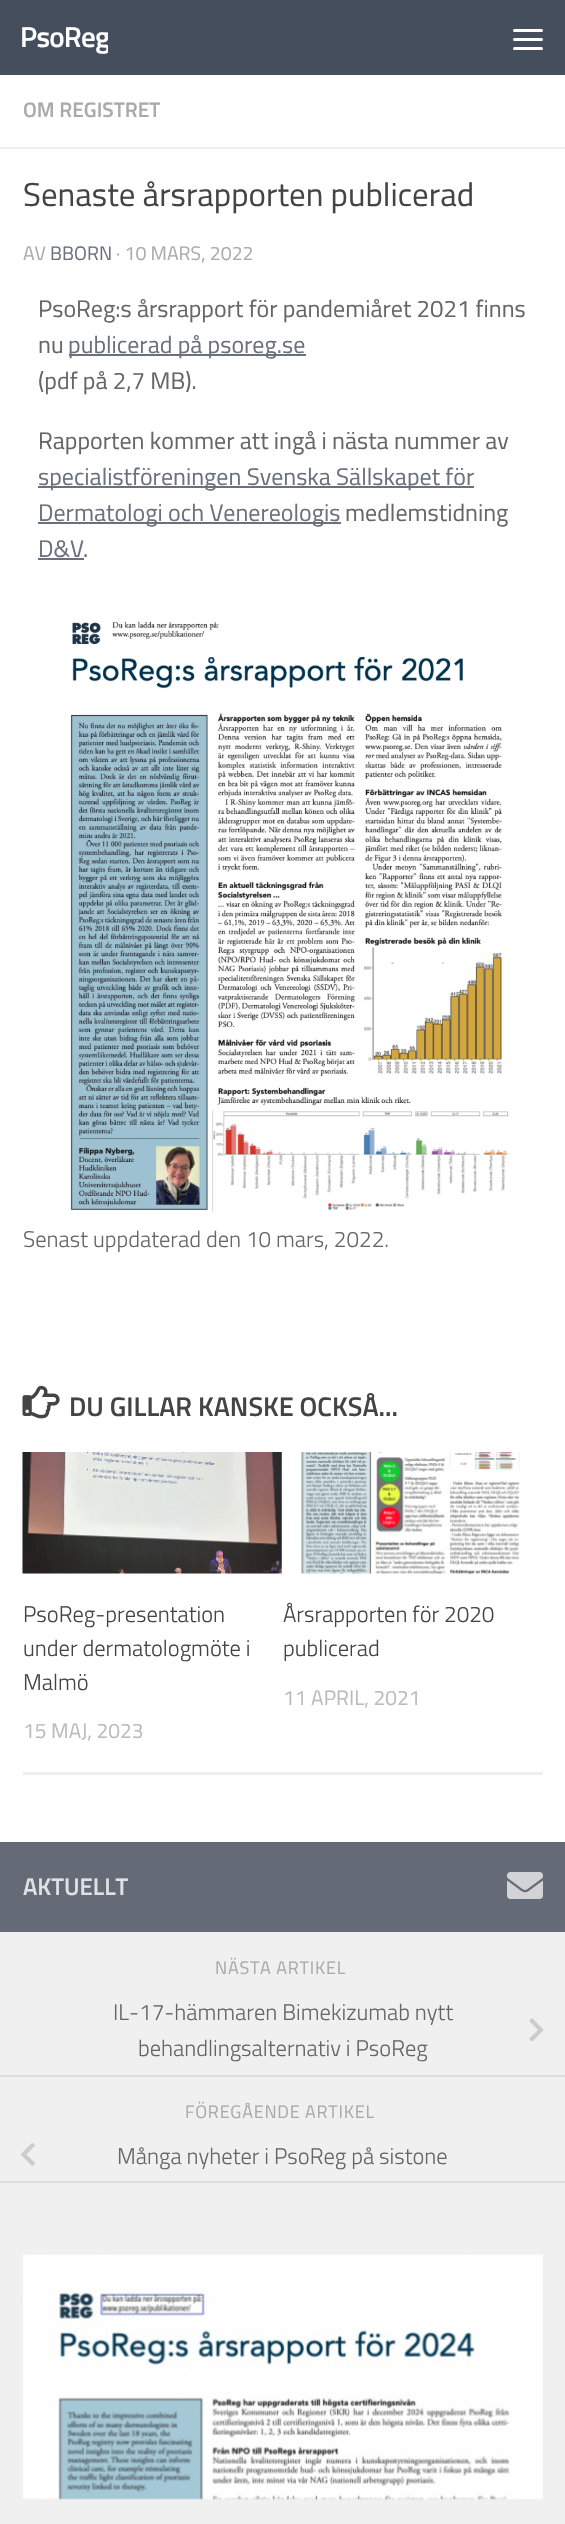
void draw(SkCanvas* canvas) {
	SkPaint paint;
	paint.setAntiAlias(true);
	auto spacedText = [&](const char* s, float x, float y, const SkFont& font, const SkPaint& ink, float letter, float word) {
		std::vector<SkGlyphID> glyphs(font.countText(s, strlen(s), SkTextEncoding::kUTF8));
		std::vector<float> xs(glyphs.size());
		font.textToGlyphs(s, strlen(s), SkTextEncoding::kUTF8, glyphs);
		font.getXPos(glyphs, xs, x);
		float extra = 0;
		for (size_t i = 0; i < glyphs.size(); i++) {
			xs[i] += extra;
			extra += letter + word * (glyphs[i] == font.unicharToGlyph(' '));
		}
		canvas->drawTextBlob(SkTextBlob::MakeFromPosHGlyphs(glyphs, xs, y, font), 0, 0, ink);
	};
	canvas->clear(0xffffffff);
	paint.setColor(0xff454e5c);
	canvas->drawRect(SkRect::MakeXYWH(0, 0, 565, 75), paint);
	canvas->save();
	canvas->clipRect(SkRect::MakeXYWH(20, 0, 88, 75));
	SkFont f1(fontMgr->matchFamilyStyle("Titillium", SkFontStyle(600, SkFontStyle::kNormal_Width, SkFontStyle::kUpright_Slant)), 29);
	f1.setSubpixel(true);
	paint.setColor(0xffffffff);
	spacedText("PsoReg", 20, 47, f1, paint, -0.75, 0);
	canvas->restore();
	canvas->drawRoundRect(SkRect::MakeXYWH(513, 29, 30, 3), 1.5, 1.5, paint);
	canvas->drawRoundRect(SkRect::MakeXYWH(513, 38, 30, 3), 1.5, 1.5, paint);
	canvas->drawRoundRect(SkRect::MakeXYWH(513, 47, 30, 3), 1.5, 1.5, paint);
	paint.setColor(0xffeeeeee);
	canvas->drawRect(SkRect::MakeXYWH(0, 147, 565, 2), paint);
	SkFont f2(fontMgr->matchFamilyStyle("Titillium", SkFontStyle(600, SkFontStyle::kNormal_Width, SkFontStyle::kUpright_Slant)), 21);
	f2.setSubpixel(true);
	paint.setColor(0xffaaaaaa);
	canvas->drawString("OM REGISTRET", 23, 117, f2, paint);
	SkFont f3(fontMgr->matchFamilyStyle("Titillium", SkFontStyle::Normal()), 33);
	f3.setSubpixel(true);
	paint.setColor(0xff444444);
	canvas->drawString("Senaste årsrapporten publicerad", 23, 206, f3, paint);
	SkFont f4(fontMgr->matchFamilyStyle("Titillium", SkFontStyle::Normal()), 19.5);
	f4.setSubpixel(true);
	paint.setColor(0xffaaaaaa);
	canvas->drawString("AV", 23, 260, f4, paint);
	paint.setColor(0xff6a717d);
	canvas->drawString("BBORN", 50, 260, f4, paint);
	paint.setColor(0xffaaaaaa);
	canvas->drawString("· 10 MARS, 2022", 116, 260, f4, paint);
	SkFont f5(fontMgr->matchFamilyStyle("Titillium", SkFontStyle::Normal()), 24);
	f5.setSubpixel(true);
	paint.setColor(0xff666666);
	canvas->drawString("PsoReg:s årsrapport för pandemiåret 2021 finns", 38, 317, f5, paint);
	canvas->drawString("nu", 38, 353, f5, paint);
	paint.setColor(0xff6a717d);
	canvas->drawRect(SkRect::MakeXYWH(69, 354, 237, 2), paint);
	canvas->drawString("publicerad på psoreg.se", 68, 353, f5, paint);
	paint.setColor(0xff666666);
	canvas->drawString("(pdf på 2,7 MB).", 38, 389, f5, paint);
	canvas->drawString("Rapporten kommer att ingå i nästa nummer av", 38, 449, f5, paint);
	paint.setColor(0xff6a717d);
	canvas->drawRect(SkRect::MakeXYWH(38, 486, 436, 2), paint);
	canvas->drawString("specialistföreningen Svenska Sällskapet för", 38, 485, f5, paint);
	canvas->drawRect(SkRect::MakeXYWH(38, 522, 303, 2), paint);
	canvas->drawString("Dermatologi och Venereologis", 38, 521, f5, paint);
	paint.setColor(0xff666666);
	canvas->drawString("medlemstidning", 345, 521, f5, paint);
	paint.setColor(0xff6a717d);
	canvas->drawString("D&V", 38, 557, f5, paint);
	canvas->drawRect(SkRect::MakeXYWH(38, 558, 46, 2), paint);
	paint.setColor(0xff666666);
	canvas->drawString(".", 83, 557, f5, paint);
	canvas->drawImageRect(SkImages::DeferredFromEncodedData(SkData::MakeFromFileName("img1.png")), SkRect::MakeXYWH(70, 621, 439, 591), SkSamplingOptions());
	SkFont f6(fontMgr->matchFamilyStyle("Titillium", SkFontStyle(300, SkFontStyle::kNormal_Width, SkFontStyle::kUpright_Slant)), 22.5);
	f6.setSubpixel(true);
	canvas->drawString("Senast uppdaterad den 10 mars, 2022.", 23, 1247, f6, paint);
	canvas->drawImageRect(SkImages::DeferredFromEncodedData(SkData::MakeFromFileName("img2.png")), SkRect::MakeXYWH(22, 1385, 38, 34), SkSamplingOptions());
	SkFont f7(fontMgr->matchFamilyStyle("Titillium", SkFontStyle(600, SkFontStyle::kNormal_Width, SkFontStyle::kUpright_Slant)), 27);
	f7.setSubpixel(true);
	paint.setColor(0xff444444);
	canvas->drawString("DU GILLAR KANSKE OCKSÅ...", 69, 1416, f7, paint);
	paint.setColor(0xffeeeeee);
	canvas->drawRect(SkRect::MakeXYWH(23, 1772, 520, 3), paint);
	canvas->drawImageRect(SkImages::DeferredFromEncodedData(SkData::MakeFromFileName("img3.png")), SkRect::MakeXYWH(22, 1452, 260, 122), SkSamplingOptions());
	paint.setColor(0xff444444);
	canvas->drawString("PsoReg-presentation", 23, 1622, f6, paint);
	canvas->drawString("under dermatologmöte i", 23, 1656, f6, paint);
	canvas->drawString("Malmö", 23, 1690, f6, paint);
	SkFont f8(fontMgr->matchFamilyStyle("Titillium", SkFontStyle::Normal()), 21);
	f8.setSubpixel(true);
	paint.setColor(0xffbbbbbb);
	canvas->drawString("15 MAJ, 2023", 23, 1738, f8, paint);
	canvas->drawImageRect(SkImages::DeferredFromEncodedData(SkData::MakeFromFileName("img4.png")), SkRect::MakeXYWH(301, 1452, 219, 122), SkSamplingOptions());
	paint.setColor(0xff444444);
	canvas->drawString("Årsrapporten för 2020", 283, 1622, f6, paint);
	canvas->drawString("publicerad", 283, 1656, f6, paint);
	paint.setColor(0xffbbbbbb);
	canvas->drawString("11 APRIL, 2021", 283, 1705, f8, paint);
	paint.setColor(0xfff0f0f0);
	canvas->drawRect(SkRect::MakeXYWH(0, 1932, 565, 592), paint);
	paint.setColor(0xff646b77);
	canvas->drawRect(SkRect::MakeXYWH(0, 1842, 565, 90), paint);
	SkFont f9(fontMgr->matchFamilyStyle("Titillium", SkFontStyle(600, SkFontStyle::kNormal_Width, SkFontStyle::kUpright_Slant)), 24);
	f9.setSubpixel(true);
	paint.setColor(0xffe0e1e4);
	canvas->drawString("AKTUELLT", 23, 1895, f9, paint);
	canvas->drawImageRect(SkImages::DeferredFromEncodedData(SkData::MakeFromFileName("img5.png")), SkRect::MakeXYWH(507, 1872, 36, 27), SkSamplingOptions());
	SkFont f10(fontMgr->matchFamilyStyle("Titillium", SkFontStyle::Normal()), 18);
	f10.setSubpixel(true);
	paint.setColor(0xffaaaaaa);
	spacedText("NÄSTA ARTIKEL", 215, 1974, f10, paint, 0.75, 0);
	paint.setColor(0xffdddddd);
	canvas->drawRect(SkRect::MakeXYWH(0, 2075, 565, 2), paint);
	paint.setColor(0xff666666);
	canvas->drawString("IL-17-hämmaren Bimekizumab nytt", 113, 2020, f6, paint);
	canvas->drawImageRect(SkImages::DeferredFromEncodedData(SkData::MakeFromFileName("img6.png")), SkRect::MakeXYWH(529, 2018, 15, 24), SkSamplingOptions());
	canvas->drawString("behandlingsalternativ i PsoReg", 138, 2056, f6, paint);
	paint.setColor(0xffaaaaaa);
	spacedText("FÖREGÅENDE ARTIKEL", 185, 2118, f10, paint, 0.75, 0);
	paint.setColor(0xffdddddd);
	canvas->drawRect(SkRect::MakeXYWH(0, 2181, 565, 2), paint);
	canvas->drawImageRect(SkImages::DeferredFromEncodedData(SkData::MakeFromFileName("img7.png")), SkRect::MakeXYWH(21, 2143, 14, 23), SkSamplingOptions());
	paint.setColor(0xff666666);
	canvas->drawString("Många nyheter i PsoReg på sistone", 117, 2164, f6, paint);
	canvas->drawImageRect(SkImages::DeferredFromEncodedData(SkData::MakeFromFileName("img8.png")), SkRect::MakeXYWH(23, 2254, 520, 246), SkSamplingOptions());
}
